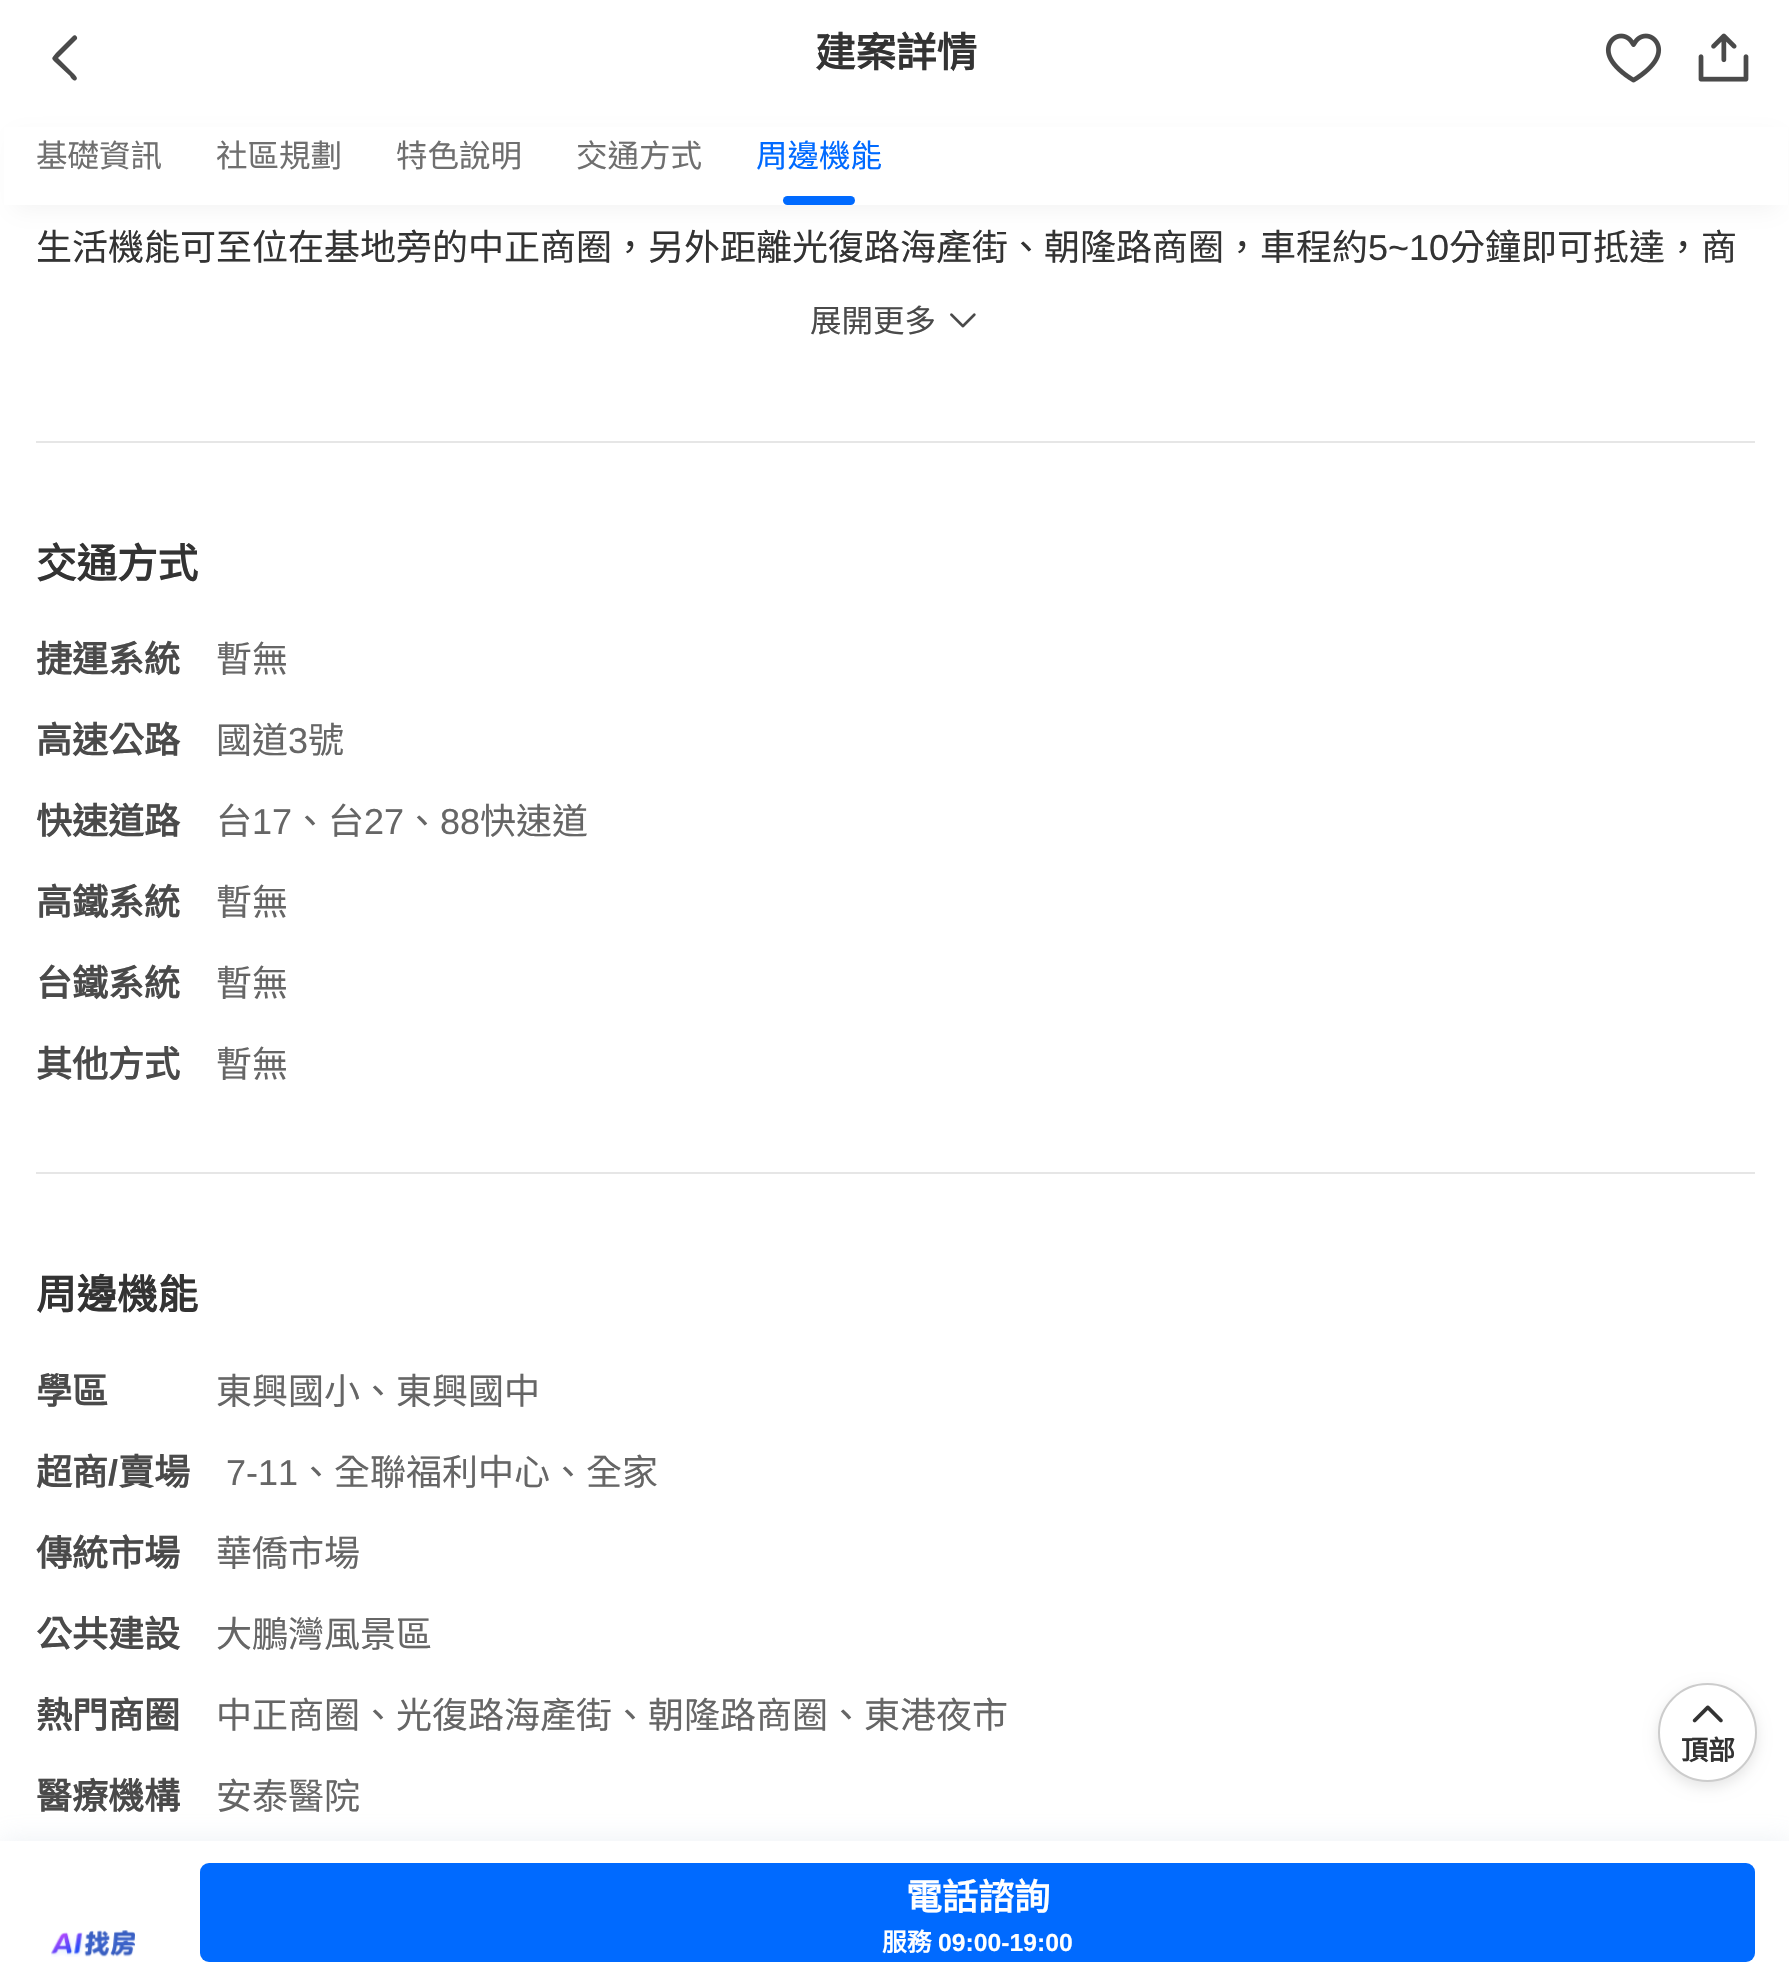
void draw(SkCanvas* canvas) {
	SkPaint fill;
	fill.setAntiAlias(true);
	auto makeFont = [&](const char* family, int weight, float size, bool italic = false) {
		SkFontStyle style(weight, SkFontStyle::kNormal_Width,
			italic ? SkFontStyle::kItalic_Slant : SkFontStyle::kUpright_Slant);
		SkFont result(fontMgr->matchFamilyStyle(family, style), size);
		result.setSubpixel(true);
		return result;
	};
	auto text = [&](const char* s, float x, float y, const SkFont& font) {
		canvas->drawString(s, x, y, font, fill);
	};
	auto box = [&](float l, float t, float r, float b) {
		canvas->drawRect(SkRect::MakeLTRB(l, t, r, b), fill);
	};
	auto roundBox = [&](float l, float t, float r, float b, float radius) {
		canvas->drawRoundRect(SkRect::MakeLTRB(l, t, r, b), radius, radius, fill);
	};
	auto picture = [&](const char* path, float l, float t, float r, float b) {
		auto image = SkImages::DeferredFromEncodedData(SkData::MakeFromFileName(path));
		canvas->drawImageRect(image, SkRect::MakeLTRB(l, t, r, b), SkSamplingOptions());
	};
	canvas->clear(0xFFFFFFFF);
	fill.setColor(0xFF4A4A4A);
	canvas->drawPath(SkPathBuilder().moveTo(73, 36).cubicTo(75, 34, 78, 37, 77, 39).lineTo(58, 58).lineTo(73, 73).cubicTo(74, 74, 79, 78, 76, 80).cubicTo(74, 82, 71, 78, 70, 76).lineTo(56, 63).cubicTo(51, 58, 51, 59, 56, 53).close().detach(), fill);
	picture("image0.png", 1605, 33, 1662, 83);
	picture("image1.png", 1698, 33, 1749, 82);
	fill.setColor(0x1A828282);
	fill.setMaskFilter(SkMaskFilter::MakeBlur(kNormal_SkBlurStyle, 12.5f));
	canvas->drawRect(SkRect::MakeLTRB(14, 137, 1778, 209), fill);
	fill.setMaskFilter(nullptr);
	fill.setColor(0xFFFFFFFF);
	box(4, 127, 1788, 205);
	fill.setColor(0xFF006AFF);
	roundBox(783, 196, 855, 205, 4.5f);
	fill.setColor(0xFFE6E6E6);
	box(36, 441, 1755, 443);
	picture("image2.png", 950, 313, 976, 328);
	box(36, 1172, 1755, 1174);
	fill.setColor(0x339FB4C8);
	fill.setMaskFilter(SkMaskFilter::MakeBlur(kNormal_SkBlurStyle, 13.5f));
	canvas->drawRect(SkRect::MakeLTRB(0, 1841, 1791, 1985), fill);
	fill.setMaskFilter(nullptr);
	fill.setColor(0xFFFFFFFF);
	box(0, 1841, 1789, 1984);
	picture("image3.png", 51, 1930, 135, 1957);
	fill.setColor(0xFF006AFF);
	roundBox(200, 1863, 1755, 1962, 9);
	fill.setColor(0x1A000000);
	fill.setMaskFilter(SkMaskFilter::MakeBlur(kNormal_SkBlurStyle, 7));
	canvas->drawRoundRect(SkRect::MakeLTRB(1658, 1688, 1757, 1787), 49.5f, 49.5f, fill);
	fill.setMaskFilter(nullptr);
	fill.setColor(0xFFFFFFFF);
	canvas->drawCircle(1707.5f, 1732.5f, 48.5f, fill);
	fill.setStyle(SkPaint::kStroke_Style);
	fill.setStrokeWidth(2);
	fill.setColor(0xFFCCCCCC);
	canvas->drawCircle(1707.5f, 1732.5f, 48.5f, fill);
	picture("image4.png", 1692, 1705, 1723, 1723);
	auto font1 = makeFont("Noto Sans CJK TC", 700, 40.5f);
	fill.setStyle(SkPaint::kFill_Style);
	fill.setColor(0xFF333333);
	text("建案詳情", 815, 67, font1);
	auto font2 = makeFont("Noto Sans CJK TC", 400, 31.5f);
	fill.setColor(0xFF6F6F6F);
	text("基礎資訊", 36, 167, font2);
	text("社區規劃", 216, 167, font2);
	text("特色說明", 396, 167, font2);
	text("交通方式", 576, 167, font2);
	fill.setColor(0xFF006AFF);
	text("周邊機能", 756, 167, font2);
	auto font3 = makeFont("Noto Sans CJK TC", 400, 36);
	fill.setColor(0xFF333333);
	text("生活機能可至位在基地旁的中正商圈，另外距離光復路海產街、朝隆路商圈，車程約", 36, 260, font3);
	auto font4 = makeFont("Liberation Sans", 400, 36);
	text("5~10", 1368, 260, font4);
	text("分鐘即可抵達，商", 1449, 260, font3);
	fill.setColor(0xFF4A4A4A);
	text("展開更多", 810, 332, font2);
	fill.setColor(0xFF333333);
	text("交通方式", 36, 578, font1);
	auto font5 = makeFont("Noto Sans CJK TC", 700, 36);
	fill.setColor(0xFF4A4A4A);
	text("捷運系統", 36, 672, font5);
	fill.setColor(0xFF666666);
	text("暫無", 216, 672, font3);
	fill.setColor(0xFF4A4A4A);
	text("高速公路", 36, 753, font5);
	fill.setColor(0xFF666666);
	text("國道", 216, 753, font3);
	text("3", 288, 753, font4);
	text("號", 308, 753, font3);
	fill.setColor(0xFF4A4A4A);
	text("快速道路", 36, 834, font5);
	fill.setColor(0xFF666666);
	text("台", 216, 834, font3);
	text("17", 252, 834, font4);
	text("、台", 292, 834, font3);
	text("27", 364, 834, font4);
	text("、", 404, 834, font3);
	text("88", 440, 834, font4);
	text("快速道", 480, 834, font3);
	fill.setColor(0xFF4A4A4A);
	text("高鐵系統", 36, 915, font5);
	fill.setColor(0xFF666666);
	text("暫無", 216, 915, font3);
	fill.setColor(0xFF4A4A4A);
	text("台鐵系統", 36, 996, font5);
	fill.setColor(0xFF666666);
	text("暫無", 216, 996, font3);
	fill.setColor(0xFF4A4A4A);
	text("其他方式", 36, 1077, font5);
	fill.setColor(0xFF666666);
	text("暫無", 216, 1077, font3);
	fill.setColor(0xFF333333);
	text("周邊機能", 36, 1309, font1);
	fill.setColor(0xFF4A4A4A);
	text("學區", 36, 1404, font5);
	fill.setColor(0xFF666666);
	text("東興國小、東興國中", 216, 1404, font3);
	fill.setColor(0xFF4A4A4A);
	text("超商", 36, 1485, font5);
	auto font6 = makeFont("Liberation Sans", 700, 36);
	text("/", 108, 1485, font6);
	text("賣場", 118, 1485, font5);
	fill.setColor(0xFF666666);
	text("7-11", 226, 1485, font4);
	text("、全聯福利中心、全家", 298, 1485, font3);
	fill.setColor(0xFF4A4A4A);
	text("傳統市場", 36, 1566, font5);
	fill.setColor(0xFF666666);
	text("華僑市場", 216, 1566, font3);
	fill.setColor(0xFF4A4A4A);
	text("公共建設", 36, 1647, font5);
	fill.setColor(0xFF666666);
	text("大鵬灣風景區", 216, 1647, font3);
	fill.setColor(0xFF4A4A4A);
	text("熱門商圈", 36, 1728, font5);
	fill.setColor(0xFF666666);
	text("中正商圈、光復路海產街、朝隆路商圈、東港夜市", 216, 1728, font3);
	fill.setColor(0xFF4A4A4A);
	text("醫療機構", 36, 1809, font5);
	fill.setColor(0xFF666666);
	text("安泰醫院", 216, 1809, font3);
	fill.setColor(0xFFFFFFFF);
	text("電話諮詢", 906, 1910, font5);
	auto font7 = makeFont("Noto Sans CJK TC", 700, 24.75f);
	text("服務", 882, 1951, font7);
	auto font8 = makeFont("Liberation Sans", 700, 24.75f);
	text("09:00-19:00", 938, 1951, font8);
	auto font9 = makeFont("Noto Sans CJK TC", 700, 27);
	fill.setColor(0xFF333333);
	text("頂部", 1681, 1760, font9);
}
